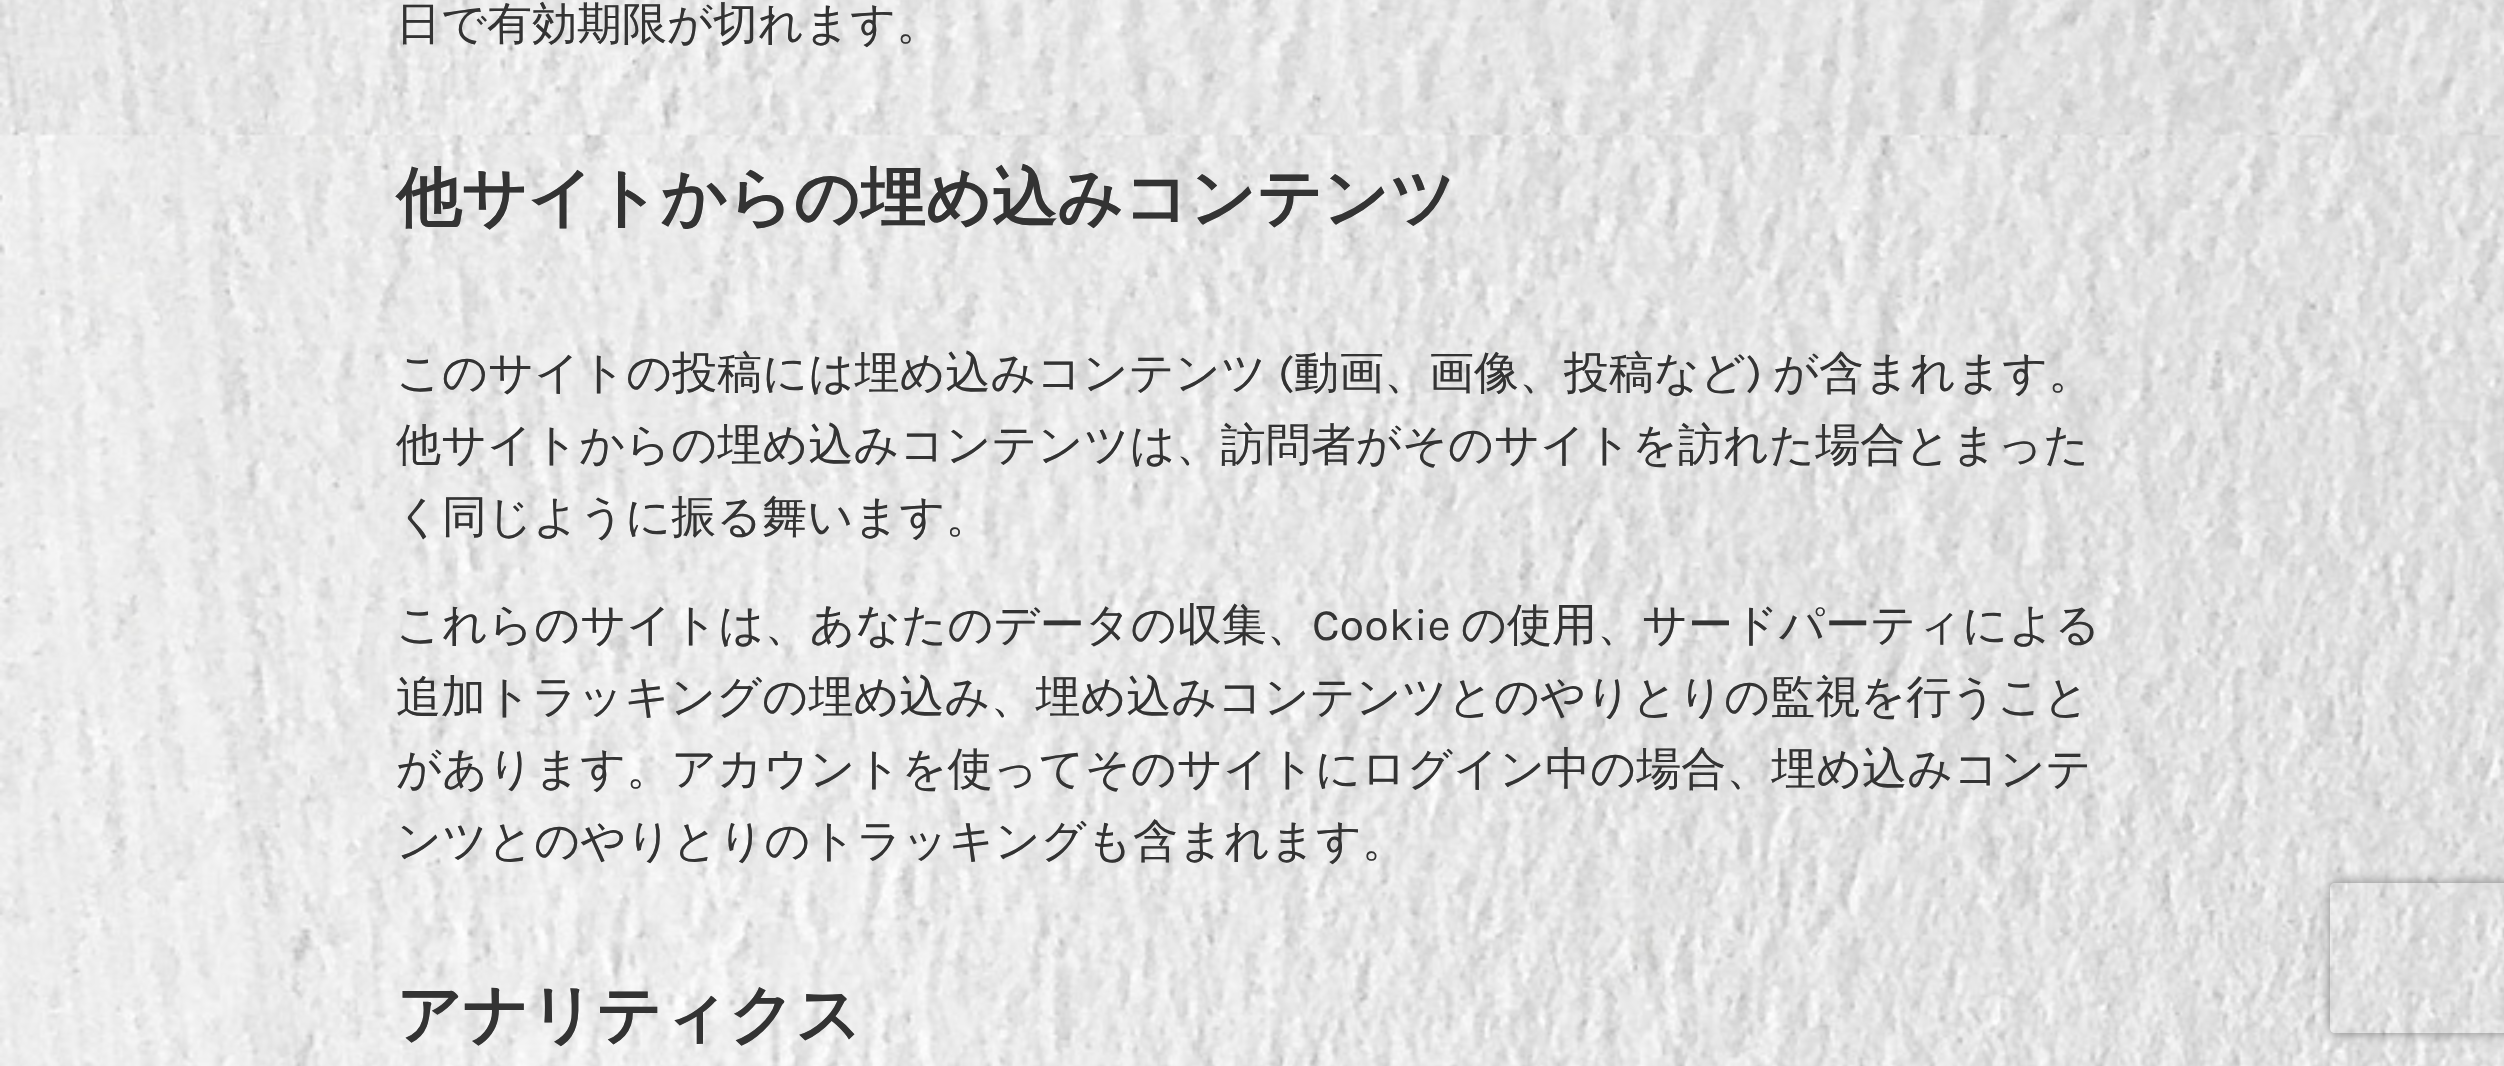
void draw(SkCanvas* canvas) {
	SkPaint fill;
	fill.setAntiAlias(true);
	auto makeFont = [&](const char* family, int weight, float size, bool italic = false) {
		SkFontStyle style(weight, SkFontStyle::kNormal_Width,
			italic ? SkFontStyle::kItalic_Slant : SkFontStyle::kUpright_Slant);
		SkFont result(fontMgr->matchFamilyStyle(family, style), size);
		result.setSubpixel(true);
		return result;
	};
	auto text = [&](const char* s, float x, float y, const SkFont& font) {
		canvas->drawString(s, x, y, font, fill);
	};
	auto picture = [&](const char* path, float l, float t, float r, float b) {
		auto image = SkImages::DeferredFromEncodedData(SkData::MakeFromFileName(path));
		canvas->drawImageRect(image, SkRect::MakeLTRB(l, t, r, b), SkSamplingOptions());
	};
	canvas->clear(0xFFFFFFFF);
	picture("image0.png", 0, 0, 2504, 1066);
	canvas->save();
	canvas->clipPath(SkPathBuilder(SkPathFillType::kEvenOdd).moveTo(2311, 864).lineTo(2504, 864).lineTo(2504, 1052).lineTo(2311, 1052).close().moveTo(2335, 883).lineTo(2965, 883).cubicTo(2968, 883, 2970, 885, 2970, 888).lineTo(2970, 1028).cubicTo(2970, 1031, 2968, 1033, 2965, 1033).lineTo(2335, 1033).cubicTo(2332, 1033, 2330, 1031, 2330, 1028).lineTo(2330, 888).cubicTo(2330, 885, 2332, 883, 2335, 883).close().detach(), true);
	fill.setColor(0xFF808080);
	fill.setMaskFilter(SkMaskFilter::MakeBlur(kNormal_SkBlurStyle, 6));
	canvas->drawRoundRect(SkRect::MakeLTRB(2330, 883, 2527, 1033), 5, 5, fill);
	fill.setMaskFilter(nullptr);
	canvas->restore();
	auto font1 = makeFont("WenQuanYi Zen Hei", 500, 45);
	fill.setColor(0xFF333333);
	text("日で有効期限が切れます。", 396, 39, font1);
	auto font2 = makeFont("WenQuanYi Zen Hei", 700, 65);
	text("他サイトからの埋め込みコンテンツ", 396, 220, font2);
	text("このサイトの投稿には埋め込みコンテンツ", 396, 388, font1);
	auto font3 = makeFont("Karla", 400, 45);
	text("(", 1278, 388, font3);
	text("動画、画像、投稿など", 1294, 388, font1);
	text(")", 1746, 388, font3);
	text("が含まれます。", 1773, 388, font1);
	text("他サイトからの埋め込みコンテンツは、訪問者がそのサイトを訪れた場合とまった", 396, 460, font1);
	text("く同じように振る舞います。", 396, 532, font1);
	text("これらのサイトは、あなたのデータの収集、", 396, 640, font1);
	text("Cookie", 1312, 640, font3);
	text("の使用、サードパーティによる", 1461, 640, font1);
	text("追加トラッキングの埋め込み、埋め込みコンテンツとのやりとりの監視を行うこと", 396, 712, font1);
	text("があります。アカウントを使ってそのサイトにログイン中の場合、埋め込みコンテ", 396, 784, font1);
	text("ンツとのやりとりのトラッキングも含まれます。", 396, 856, font1);
	text("アナリティクス", 396, 1037, font2);
}
